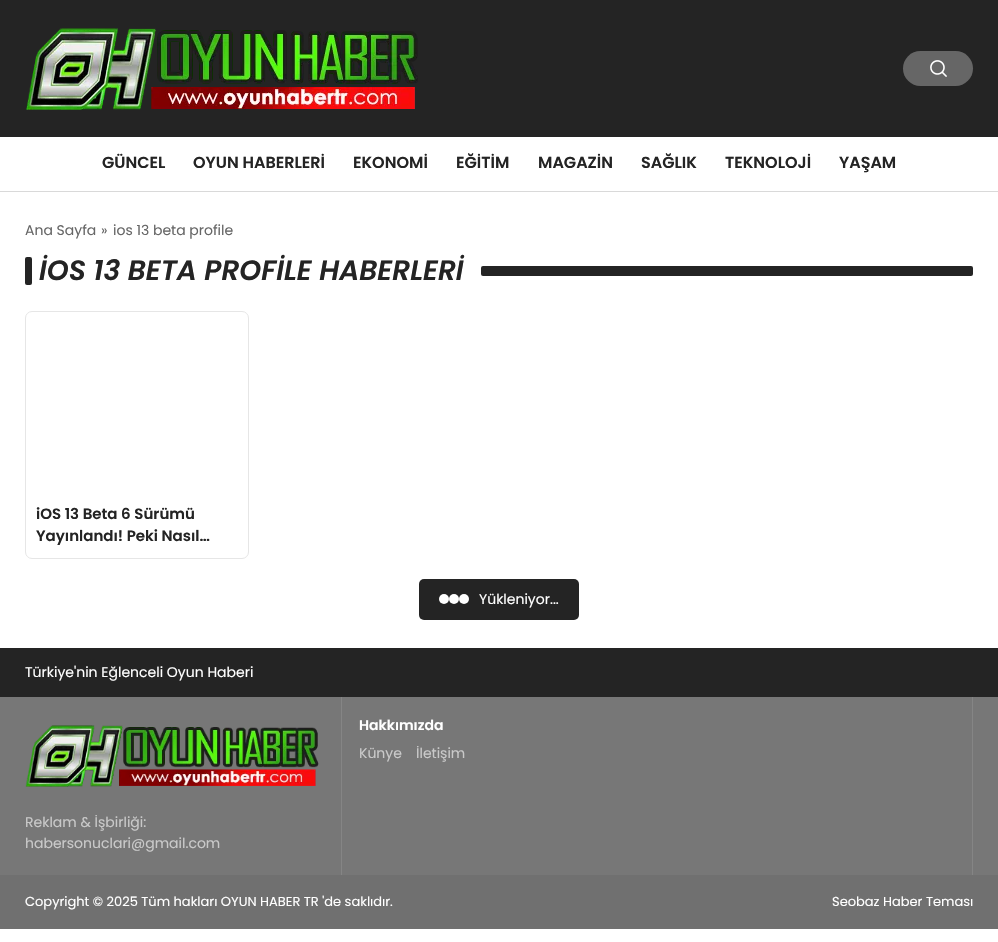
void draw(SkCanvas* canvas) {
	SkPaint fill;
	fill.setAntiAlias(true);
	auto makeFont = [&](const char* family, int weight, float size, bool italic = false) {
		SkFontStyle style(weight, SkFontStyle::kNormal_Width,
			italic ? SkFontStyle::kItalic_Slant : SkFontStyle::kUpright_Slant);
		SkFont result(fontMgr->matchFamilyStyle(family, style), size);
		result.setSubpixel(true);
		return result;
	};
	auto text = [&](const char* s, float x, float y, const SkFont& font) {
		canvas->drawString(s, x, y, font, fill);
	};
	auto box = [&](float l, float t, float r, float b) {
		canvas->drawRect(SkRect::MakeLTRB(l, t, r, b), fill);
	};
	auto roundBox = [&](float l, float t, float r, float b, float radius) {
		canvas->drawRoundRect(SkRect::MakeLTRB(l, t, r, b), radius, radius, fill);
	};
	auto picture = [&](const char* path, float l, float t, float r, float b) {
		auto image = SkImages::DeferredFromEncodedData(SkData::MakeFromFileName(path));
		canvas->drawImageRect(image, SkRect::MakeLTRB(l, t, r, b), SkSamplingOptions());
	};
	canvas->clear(0xFFFFFFFF);
	fill.setColor(0xFF242424);
	box(0, 0, 998, 137);
	picture("image0.png", 26, 28, 418, 110);
	fill.setColor(0xFF666666);
	roundBox(903, 51, 973, 86, 17.5f);
	picture("image1.png", 930, 60, 947, 77);
	fill.setColor(0xFFD9D9D9);
	box(0, 191, 998, 192);
	fill.setColor(0xFF242424);
	roundBox(25, 257, 32, 285, 2);
	roundBox(481, 266, 973, 276, 2);
	fill.setStyle(SkPaint::kStroke_Style);
	fill.setStrokeWidth(1);
	fill.setColor(0xFFE6E6E6);
	canvas->drawRoundRect(SkRect::MakeLTRB(25.5f, 311.5f, 248.5f, 558.5f), 6.5f, 6.5f, fill);
	fill.setStyle(SkPaint::kFill_Style);
	fill.setColor(0xFF242424);
	roundBox(419, 579, 579, 620, 5);
	fill.setColor(0xFFFFFFFF);
	canvas->drawCircle(444, 599, 5, fill);
	canvas->drawCircle(454, 599, 5, fill);
	canvas->drawCircle(464, 599, 5, fill);
	fill.setColor(0xFF242424);
	box(0, 648, 998, 697);
	fill.setColor(0xFF777777);
	box(0, 697, 998, 875);
	fill.setColor(0xFF858585);
	box(972, 697, 973, 875);
	box(341, 697, 342, 875);
	picture("image2.png", 25, 725, 319, 787);
	fill.setColor(0xFF707070);
	box(0, 875, 998, 929);
	auto font1 = makeFont("Poppins", 600, 16);
	fill.setColor(0xFF242424);
	text("GÜNCEL", 102, 168, font1);
	text("OYUN HABERLERİ", 193, 168, font1);
	text("EKONOMİ", 353, 168, font1);
	text("EĞİTİM", 456, 168, font1);
	text("MAGAZİN", 538, 168, font1);
	text("SAĞLIK", 641, 168, font1);
	text("TEKNOLOJİ", 725, 168, font1);
	text("YAŞAM", 839, 168, font1);
	auto font2 = makeFont("Poppins", 400, 14);
	fill.setColor(0xFF676767);
	text("Ana Sayfa", 25, 235, font2);
	text("»", 101, 235, font2);
	text("ios 13 beta profile", 113, 235, font2);
	auto font3 = makeFont("Poppins", 600, 28, true);
	fill.setColor(0xFF242424);
	text("İOS 13 BETA PROFİLE HABERLERİ", 39, 280, font3);
	auto font4 = makeFont("Poppins", 600, 15);
	text("iOS 13 Beta 6 Sürümü", 36, 519, font4);
	text("Yayınlandı! Peki Nasıl…", 36, 541, font4);
	fill.setColor(0xFFFFFFFF);
	text("Yükleniyor...", 479, 604, font2);
	text("Türkiye'nin Eğlenceli Oyun Haberi", 25, 677, font2);
	auto font5 = makeFont("Poppins", 600, 14);
	text("Hakkımızda", 359, 730, font5);
	fill.setColor(0xFFC9C9C9);
	text("Künye", 359, 758, font2);
	text("İletişim", 416, 758, font2);
	text("Reklam & İşbirliği:", 25, 827, font2);
	text("habersonuclari@gmail.com", 25, 848, font2);
	auto font6 = makeFont("Poppins", 400, 13);
	fill.setColor(0xFFFFFFFF);
	text("Copyright © 2025 Tüm hakları OYUN HABER TR 'de saklıdır.", 25, 906, font6);
	text("Seobaz Haber Teması", 832, 906, font6);
}
